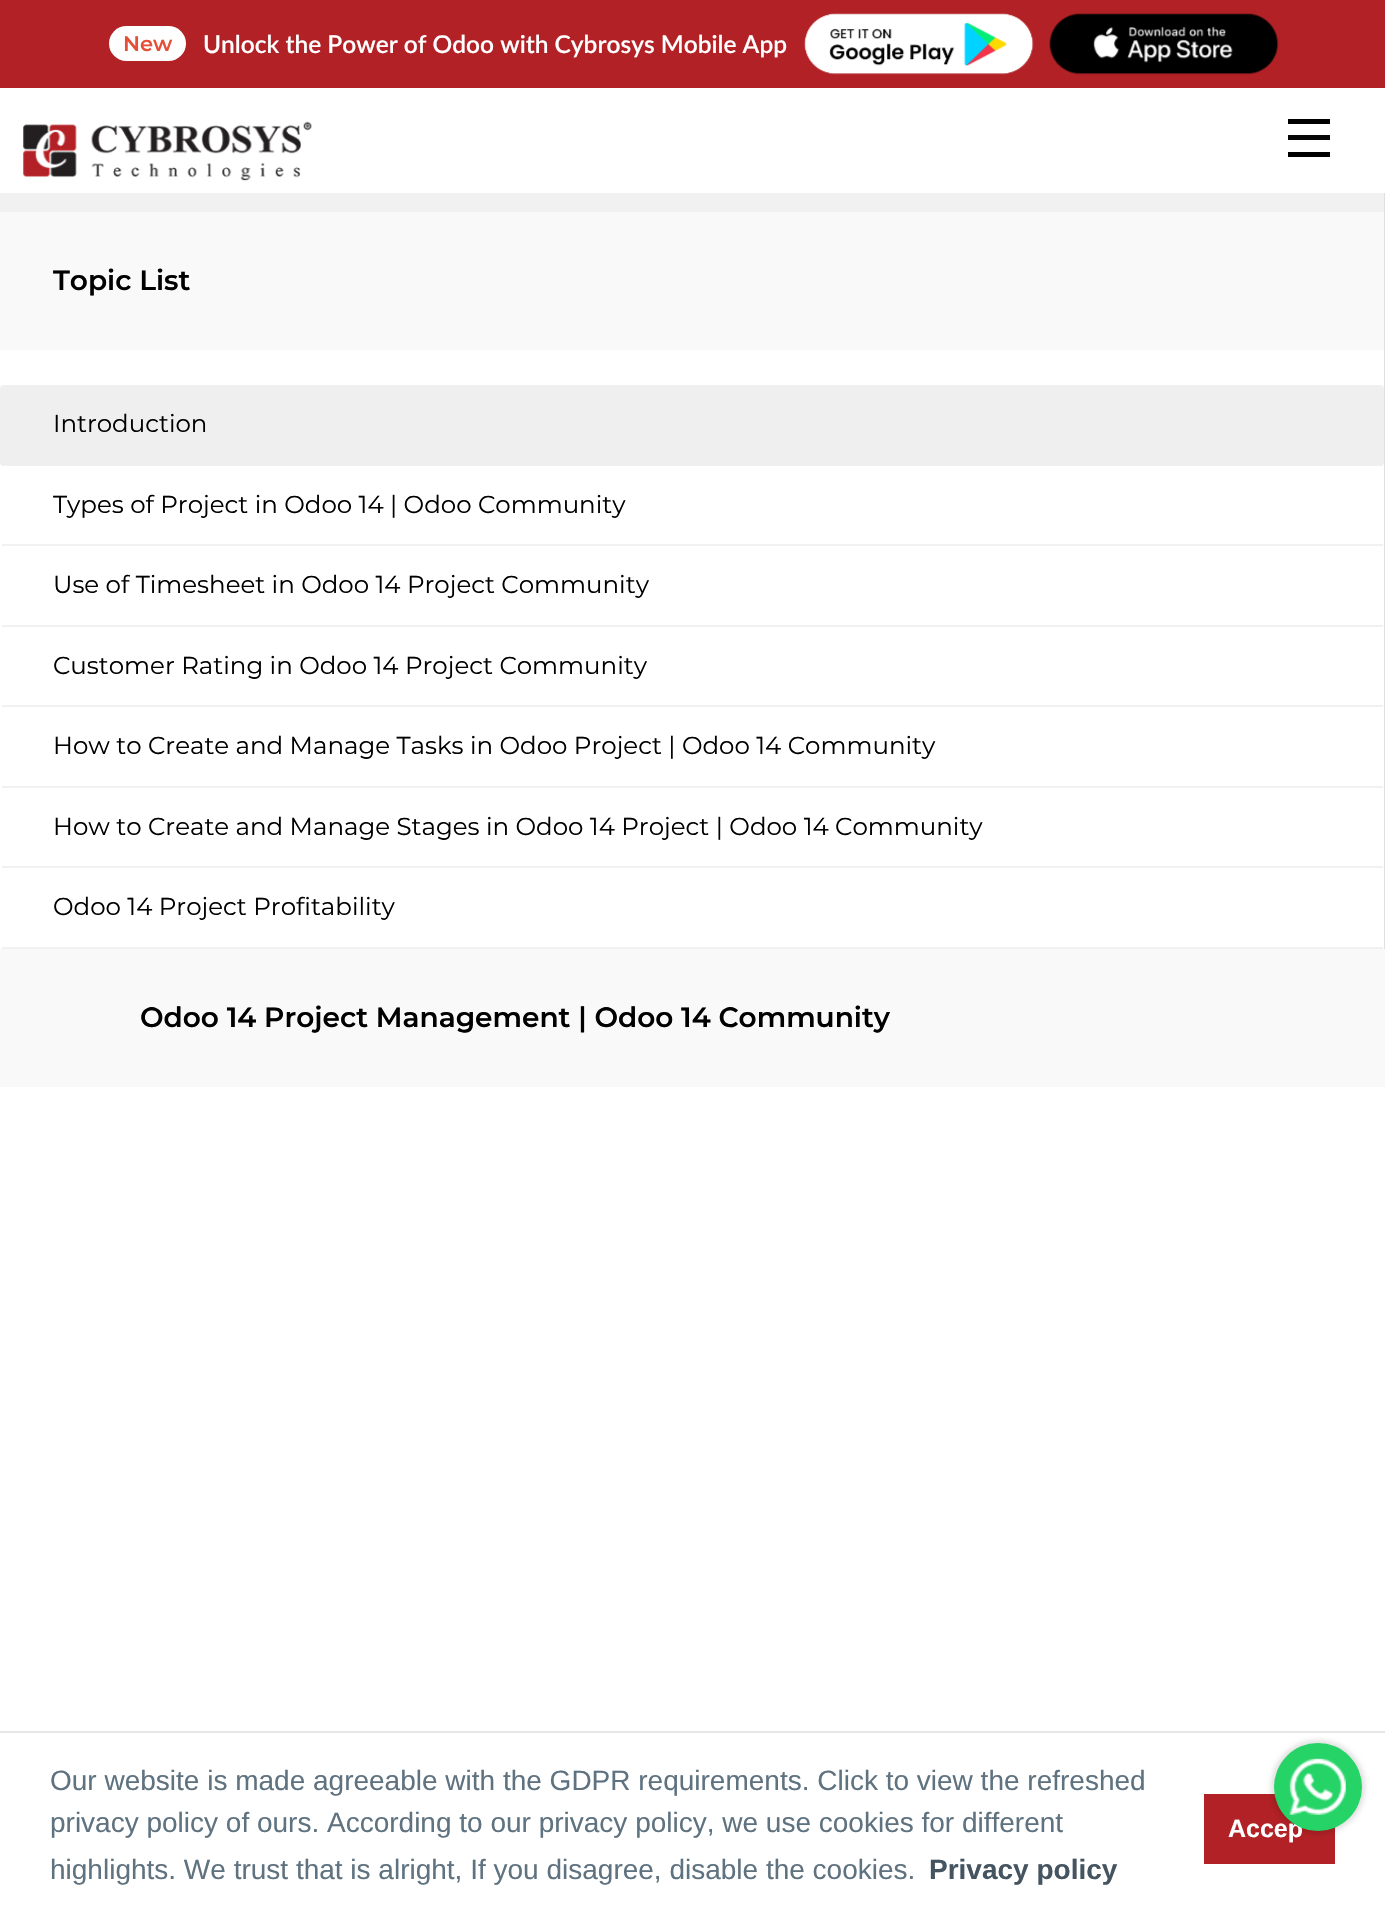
void draw(SkCanvas* canvas) {
	SkPaint fill;
	fill.setAntiAlias(true);
	auto makeFont = [&](const char* family, int weight, float size, bool italic = false) {
		SkFontStyle style(weight, SkFontStyle::kNormal_Width,
			italic ? SkFontStyle::kItalic_Slant : SkFontStyle::kUpright_Slant);
		SkFont result(fontMgr->matchFamilyStyle(family, style), size);
		result.setSubpixel(true);
		return result;
	};
	auto text = [&](const char* s, float x, float y, const SkFont& font) {
		canvas->drawString(s, x, y, font, fill);
	};
	auto box = [&](float l, float t, float r, float b) {
		canvas->drawRect(SkRect::MakeLTRB(l, t, r, b), fill);
	};
	auto roundBox = [&](float l, float t, float r, float b, float radius) {
		canvas->drawRoundRect(SkRect::MakeLTRB(l, t, r, b), radius, radius, fill);
	};
	auto picture = [&](const char* path, float l, float t, float r, float b) {
		auto image = SkImages::DeferredFromEncodedData(SkData::MakeFromFileName(path));
		canvas->drawImageRect(image, SkRect::MakeLTRB(l, t, r, b), SkSamplingOptions());
	};
	canvas->clear(0xFFFFFFFF);
	fill.setColor(0xFFB22126);
	box(0, 0, 1385, 88);
	fill.setColor(0xFFFFFFFF);
	roundBox(109, 26, 186, 61, 17.5f);
	picture("image0.png", 804, 13, 1034, 75);
	picture("image1.png", 1049, 13, 1279, 75);
	picture("image2.png", 23, 121, 312, 181);
	fill.setColor(0xFF000000);
	box(1288, 119, 1330, 124);
	box(1288, 152, 1330, 157);
	fill.setColor(0xFF070707);
	box(1288, 135, 1330, 140);
	fill.setColor(0xFFDFDFDF);
	box(1384, 193, 1385, 949);
	fill.setColor(0xFFF1F1F1);
	box(0, 193, 1384, 212);
	fill.setColor(0xFFF9F9F9);
	box(0, 212, 1384, 350);
	fill.setColor(0xFFEFEFEF);
	roundBox(0, 385, 1384, 466, 4);
	fill.setColor(0xFFF1F1F1);
	box(2, 465, 1383, 466);
	box(2, 544, 1383, 546);
	box(2, 625, 1383, 627);
	box(2, 705, 1383, 707);
	box(2, 786, 1383, 788);
	box(2, 866, 1383, 868);
	box(2, 947, 1383, 949);
	fill.setColor(0xFFF9F9F9);
	box(0, 949, 1385, 1087);
	fill.setColor(0xFFE6E6E6);
	box(0, 1731, 1385, 1733);
	fill.setColor(0xFFB22126);
	box(1204, 1794, 1335, 1864);
	fill.setColor(0x1F000000);
	fill.setMaskFilter(SkMaskFilter::MakeBlur(kNormal_SkBlurStyle, 2.5f));
	canvas->drawRoundRect(SkRect::MakeLTRB(1271, 1740, 1365, 1834), 47, 47, fill);
	fill.setMaskFilter(nullptr);
	auto font1 = makeFont("Montserrat", 600, 21);
	fill.setColor(0xFFE54F38);
	text("New", 123, 51, font1);
	auto font2 = makeFont("Lato", 600, 24.5f);
	fill.setColor(0xFFFFFFFF);
	text("Unlock the Power of Odoo with Cybrosys Mobile App", 203, 53, font2);
	auto font3 = makeFont("Montserrat", 600, 28);
	fill.setColor(0xFF000000);
	text("Topic List", 53, 290, font3);
	auto font4 = makeFont("Montserrat", 400, 24.5f);
	text("Introduction", 53, 432, font4);
	text("Types of Project in Odoo 14 | Odoo Community", 53, 513, font4);
	text("Use of Timesheet in Odoo 14 Project Community", 53, 593, font4);
	text("Customer Rating in Odoo 14 Project Community", 53, 674, font4);
	text("How to Create and Manage Tasks in Odoo Project | Odoo 14 Community", 53, 754, font4);
	text("How to Create and Manage Stages in Odoo 14 Project | Odoo 14 Community", 53, 835, font4);
	text("Odoo 14 Project Profitability", 53, 915, font4);
	text("Odoo 14 Project Management | Odoo 14 Community", 140, 1027, font3);
	auto font5 = makeFont("Liberation Sans", 400, 28);
	fill.setColor(0xFF5F727F);
	text("Our website is made agreeable with the GDPR requirements. Click to view the refreshed", 50, 1790, font5);
	text("privacy policy of ours. According to our privacy policy, we use cookies for different", 50, 1832, font5);
	text("highlights. We trust that is alright, If you disagree, disable the cookies.", 50, 1879, font5);
	auto font6 = makeFont("Liberation Sans", 700, 28);
	fill.setColor(0xFF445460);
	text("Privacy policy", 929, 1879, font6);
	auto font7 = makeFont("Liberation Sans", 700, 25);
	fill.setColor(0xFFFFFFFF);
	text("Accep", 1228, 1837, font7);
	fill.setColor(0xFF25D366);
	canvas->drawCircle(1318, 1787, 44, fill);
	picture("image3.png", 1289, 1758, 1346, 1815);
}
